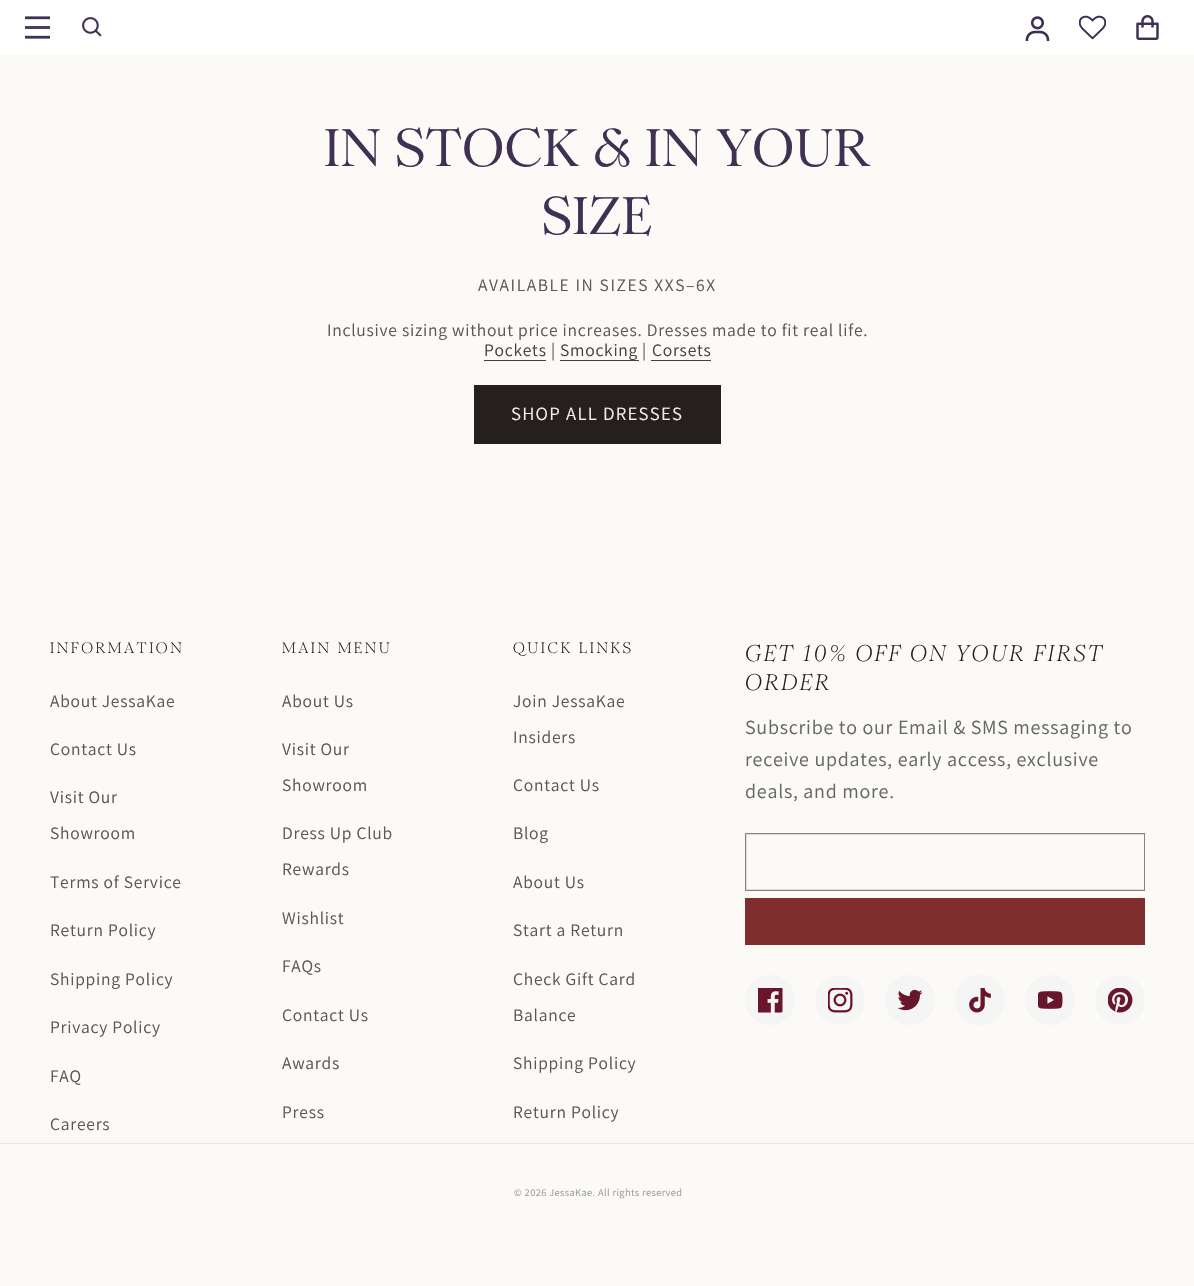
void draw(SkCanvas* canvas) {
	SkPaint fill;
	fill.setAntiAlias(true);
	auto makeFont = [&](const char* family, int weight, float size, bool italic = false) {
		SkFontStyle style(weight, SkFontStyle::kNormal_Width,
			italic ? SkFontStyle::kItalic_Slant : SkFontStyle::kUpright_Slant);
		SkFont result(fontMgr->matchFamilyStyle(family, style), size);
		result.setSubpixel(true);
		return result;
	};
	auto spacedText = [&](const char* s, float x, float y, const SkFont& font, const SkPaint& ink, float letter, float word) {
		std::vector<SkGlyphID> glyphs(font.countText(s, strlen(s), SkTextEncoding::kUTF8));
		std::vector<float> xs(glyphs.size());
		font.textToGlyphs(s, strlen(s), SkTextEncoding::kUTF8, glyphs);
		font.getXPos(glyphs, xs, x);
		float extra = 0;
		for (size_t i = 0; i < glyphs.size(); i++) {
			xs[i] += extra;
			extra += letter + word * (glyphs[i] == font.unicharToGlyph(' '));
		}
		canvas->drawTextBlob(SkTextBlob::MakeFromPosHGlyphs(glyphs, xs, y, font), 0, 0, ink);
	};
	auto box = [&](float l, float t, float r, float b) {
		canvas->drawRect(SkRect::MakeLTRB(l, t, r, b), fill);
	};
	auto picture = [&](const char* path, float l, float t, float r, float b) {
		auto image = SkImages::DeferredFromEncodedData(SkData::MakeFromFileName(path));
		canvas->drawImageRect(image, SkRect::MakeLTRB(l, t, r, b), SkSamplingOptions());
	};
	canvas->clear(0xFFFCFAF7);
	fill.setColor(0xFFFFFFFF);
	box(0, 0, 1194, 55);
	picture("image0.png", 25, 16, 50, 39);
	picture("image1.png", 82, 17, 102, 37);
	picture("image2.png", 1025, 16, 1050, 41);
	picture("image3.png", 1079, 15, 1106, 40);
	picture("image4.png", 1136, 15, 1159, 40);
	fill.setColor(0xFF45413F);
	box(484, 360, 546, 361);
	box(560, 360, 639, 361);
	box(651, 360, 711, 361);
	fill.setColor(0xFF25201E);
	box(474, 385, 721, 444);
	fill.setColor(0xFFDDDDDD);
	box(746, 834, 1144, 835);
	box(746, 889, 1144, 890);
	box(746, 834, 747, 890);
	fill.setStyle(SkPaint::kStroke_Style);
	fill.setStrokeWidth(1);
	fill.setColor(0xFF868280);
	canvas->drawRect(SkRect::MakeLTRB(745.5f, 833.5f, 1144.5f, 890.5f), fill);
	fill.setStyle(SkPaint::kFill_Style);
	fill.setColor(0xFF7E2C2C);
	box(745, 898, 1145, 945);
	fill.setColor(0xFFF5F5F5);
	canvas->drawCircle(770, 1000, 25, fill);
	picture("image5.png", 758, 988, 783, 1013);
	canvas->drawCircle(840, 1000, 25, fill);
	picture("image6.png", 828, 988, 853, 1013);
	canvas->drawCircle(910, 1000, 25, fill);
	picture("image7.png", 898, 989, 923, 1011);
	canvas->drawCircle(980, 1000, 25, fill);
	picture("image8.png", 969, 988, 991, 1013);
	canvas->drawCircle(1050, 1000, 25, fill);
	picture("image9.png", 1038, 991, 1063, 1009);
	canvas->drawCircle(1120, 1000, 25, fill);
	picture("image10.png", 1108, 988, 1133, 1013);
	fill.setColor(0xFFE5E5E5);
	box(0, 1143, 1194, 1144);
	auto font1 = makeFont("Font", 500, 52.5f);
	fill.setColor(0xFF3F3153);
	spacedText("IN STOCK & IN YOUR", 324, 166, font1, fill, 0.75f, 0);
	spacedText("SIZE", 542, 234, font1, fill, 0.75f, 0);
	auto font2 = makeFont("Assistant", 400, 17.5f);
	fill.setColor(0xFF5B5754);
	spacedText("AVAILABLE IN SIZES XXS–6X", 478, 291, font2, fill, 1.6f, 0);
	spacedText("Inclusive sizing without price increases. Dresses made to fit real life.", 327, 336, font2, fill, 0.75f, 0);
	fill.setColor(0xFF45413F);
	spacedText("Pockets", 484, 356, font2, fill, 0.75f, 0);
	fill.setColor(0xFF5B5754);
	spacedText("|", 551, 356, font2, fill, 0.75f, 0);
	fill.setColor(0xFF45413F);
	spacedText("Smocking", 560, 356, font2, fill, 0.75f, 0);
	fill.setColor(0xFF5B5754);
	spacedText("|", 642, 356, font2, fill, 0.75f, 0);
	fill.setColor(0xFF45413F);
	spacedText("Corsets", 652, 356, font2, fill, 0.75f, 0);
	auto font3 = makeFont("Assistant", 400, 18.75f);
	fill.setColor(0xFFF4EFE6);
	spacedText("SHOP ALL DRESSES", 511, 420, font3, fill, 1.25f, 0);
	auto font4 = makeFont("Font", 400, 15);
	fill.setColor(0xFF25201E);
	spacedText("INFORMATION", 50, 653, font4, fill, 2.5f, 0);
	fill.setColor(0xFF5B5754);
	spacedText("About JessaKae", 50, 707, font2, fill, 0.75f, 0);
	spacedText("Contact Us", 50, 755, font2, fill, 0.75f, 0);
	spacedText("Visit Our", 50, 803, font2, fill, 0.75f, 0);
	spacedText("Showroom", 50, 839, font2, fill, 0.75f, 0);
	spacedText("Terms of Service", 50, 888, font2, fill, 0.75f, 0);
	spacedText("Return Policy", 50, 936, font2, fill, 0.75f, 0);
	spacedText("Shipping Policy", 50, 985, font2, fill, 0.75f, 0);
	spacedText("Privacy Policy", 50, 1033, font2, fill, 0.75f, 0);
	spacedText("FAQ", 50, 1082, font2, fill, 0.75f, 0);
	spacedText("Careers", 50, 1130, font2, fill, 0.75f, 0);
	fill.setColor(0xFF25201E);
	spacedText("MAIN MENU", 282, 653, font4, fill, 2.5f, 0);
	fill.setColor(0xFF5B5754);
	spacedText("About Us", 282, 707, font2, fill, 0.75f, 0);
	spacedText("Visit Our", 282, 755, font2, fill, 0.75f, 0);
	spacedText("Showroom", 282, 791, font2, fill, 0.75f, 0);
	spacedText("Dress Up Club", 282, 839, font2, fill, 0.75f, 0);
	spacedText("Rewards", 282, 875, font2, fill, 0.75f, 0);
	spacedText("Wishlist", 282, 924, font2, fill, 0.75f, 0);
	spacedText("FAQs", 282, 972, font2, fill, 0.75f, 0);
	spacedText("Contact Us", 282, 1021, font2, fill, 0.75f, 0);
	spacedText("Awards", 282, 1069, font2, fill, 0.75f, 0);
	spacedText("Press", 282, 1118, font2, fill, 0.75f, 0);
	fill.setColor(0xFF25201E);
	spacedText("QUICK LINKS", 513, 653, font4, fill, 2.5f, 0);
	fill.setColor(0xFF5B5754);
	spacedText("Join JessaKae", 513, 707, font2, fill, 0.75f, 0);
	spacedText("Insiders", 513, 743, font2, fill, 0.75f, 0);
	spacedText("Contact Us", 513, 791, font2, fill, 0.75f, 0);
	spacedText("Blog", 513, 839, font2, fill, 0.75f, 0);
	spacedText("About Us", 513, 888, font2, fill, 0.75f, 0);
	spacedText("Start a Return", 513, 936, font2, fill, 0.75f, 0);
	spacedText("Check Gift Card", 513, 985, font2, fill, 0.75f, 0);
	spacedText("Balance", 513, 1021, font2, fill, 0.75f, 0);
	spacedText("Shipping Policy", 513, 1069, font2, fill, 0.75f, 0);
	spacedText("Return Policy", 513, 1118, font2, fill, 0.75f, 0);
	auto font5 = makeFont("Font", 400, 22.5f, true);
	fill.setColor(0xFF25201E);
	spacedText("GET 10% OFF ON YOUR FIRST", 745, 661, font5, fill, 2.5f, 0);
	spacedText("ORDER", 745, 690, font5, fill, 2.5f, 0);
	auto font6 = makeFont("Assistant", 400, 20);
	fill.setColor(0xFF666666);
	spacedText("Subscribe to our Email & SMS messaging to", 745, 734, font6, fill, 0.75f, 0);
	spacedText("receive updates, early access, exclusive", 745, 766, font6, fill, 0.75f, 0);
	spacedText("deals, and more.", 745, 798, font6, fill, 0.75f, 0);
	auto font7 = makeFont("Assistant", 400, 10.4f);
	fill.setColor(0xFF999999);
	spacedText("© 2026 JessaKae. All rights reserved", 514, 1196, font7, fill, 0.4f, 0);
}
